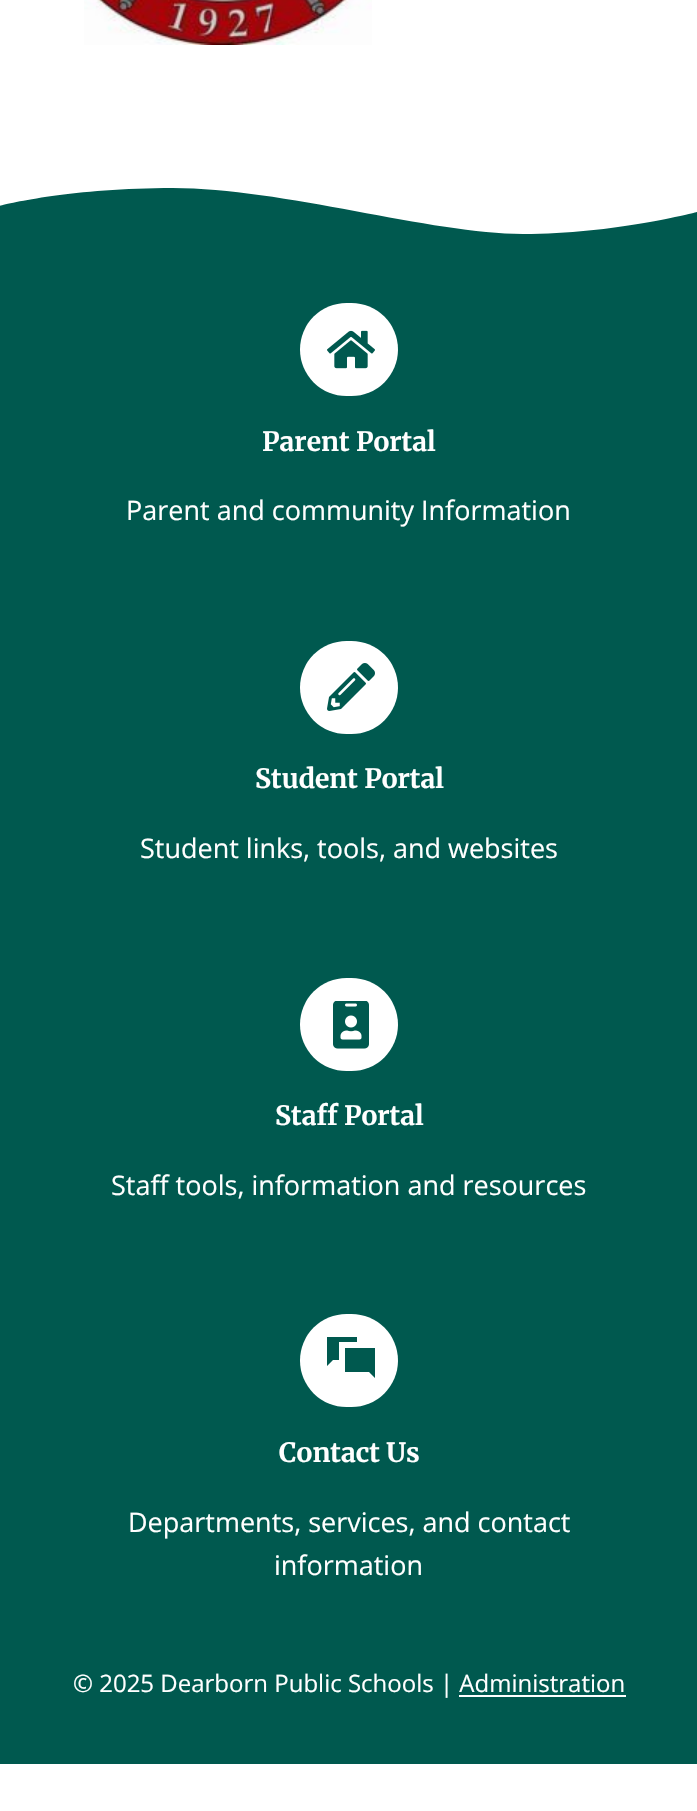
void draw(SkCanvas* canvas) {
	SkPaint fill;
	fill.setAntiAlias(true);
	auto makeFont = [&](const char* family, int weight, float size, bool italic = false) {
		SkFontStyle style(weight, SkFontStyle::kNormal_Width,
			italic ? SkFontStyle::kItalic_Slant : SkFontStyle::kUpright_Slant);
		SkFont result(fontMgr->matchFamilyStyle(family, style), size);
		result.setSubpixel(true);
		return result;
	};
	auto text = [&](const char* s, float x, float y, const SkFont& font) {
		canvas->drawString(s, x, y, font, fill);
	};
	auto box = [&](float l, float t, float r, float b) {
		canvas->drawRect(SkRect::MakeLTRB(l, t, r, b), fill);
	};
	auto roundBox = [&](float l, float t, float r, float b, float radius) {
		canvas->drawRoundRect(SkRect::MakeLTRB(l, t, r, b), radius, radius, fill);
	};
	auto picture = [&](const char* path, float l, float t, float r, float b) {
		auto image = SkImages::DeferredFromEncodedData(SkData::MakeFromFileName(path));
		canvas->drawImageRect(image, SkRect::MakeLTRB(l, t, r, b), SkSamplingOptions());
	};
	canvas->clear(0xFFFFFFFF);
	picture("image0.png", 84, 0, 372, 45);
	fill.setColor(0xFF00594F);
	box(0, 188, 697, 1764);
	fill.setColor(0xFFFFFFFF);
	canvas->drawPath(SkPathBuilder().moveTo(697, 212).cubicTo(697, 212, 614, 234, 523, 234).cubicTo(432, 234, 282, 188, 173, 188).cubicTo(65, 188, -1, 206, -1, 206).lineTo(-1, 176).lineTo(697, 176).close().detach(), fill);
	roundBox(300, 303, 398, 396, 46.5f);
	picture("image1.png", 327, 330, 375, 369);
	roundBox(300, 641, 398, 734, 46.5f);
	picture("image2.png", 327, 663, 375, 711);
	roundBox(300, 978, 398, 1071, 46.5f);
	picture("image3.png", 333, 1001, 369, 1049);
	roundBox(300, 1314, 398, 1407, 46.5f);
	canvas->save();
	canvas->clipRect(SkRect::MakeLTRB(327, 1337, 375, 1385));
	fill.setColor(0xFF00594F);
	canvas->drawPath(SkPathBuilder().moveTo(327, 1336).lineTo(327, 1366).lineTo(333, 1360).lineTo(339, 1360).lineTo(339, 1342).lineTo(357, 1342).lineTo(357, 1336).close().moveTo(345, 1348).lineTo(345, 1372).lineTo(369, 1372).lineTo(375, 1378).lineTo(375, 1348).close().detach(), fill);
	canvas->restore();
	fill.setColor(0xFFFFFFFF);
	box(459, 1695, 626, 1697);
	auto font1 = makeFont("Merriweather", 300, 26.5f);
	text("Parent Portal", 262, 451, font1);
	auto font2 = makeFont("Open Sans", 400, 27);
	text("Parent and community Information", 126, 520, font2);
	text("Student Portal", 255, 788, font1);
	text("Student links, tools, and websites", 140, 858, font2);
	text("Staff Portal", 275, 1125, font1);
	text("Staff tools, information and resources", 111, 1195, font2);
	text("Contact Us", 279, 1462, font1);
	text("Departments, services, and contact", 128, 1532, font2);
	text("information", 274, 1575, font2);
	auto font3 = makeFont("Open Sans", 400, 24);
	text("© 2025 Dearborn Public Schools | Administration", 73, 1692, font3);
}
